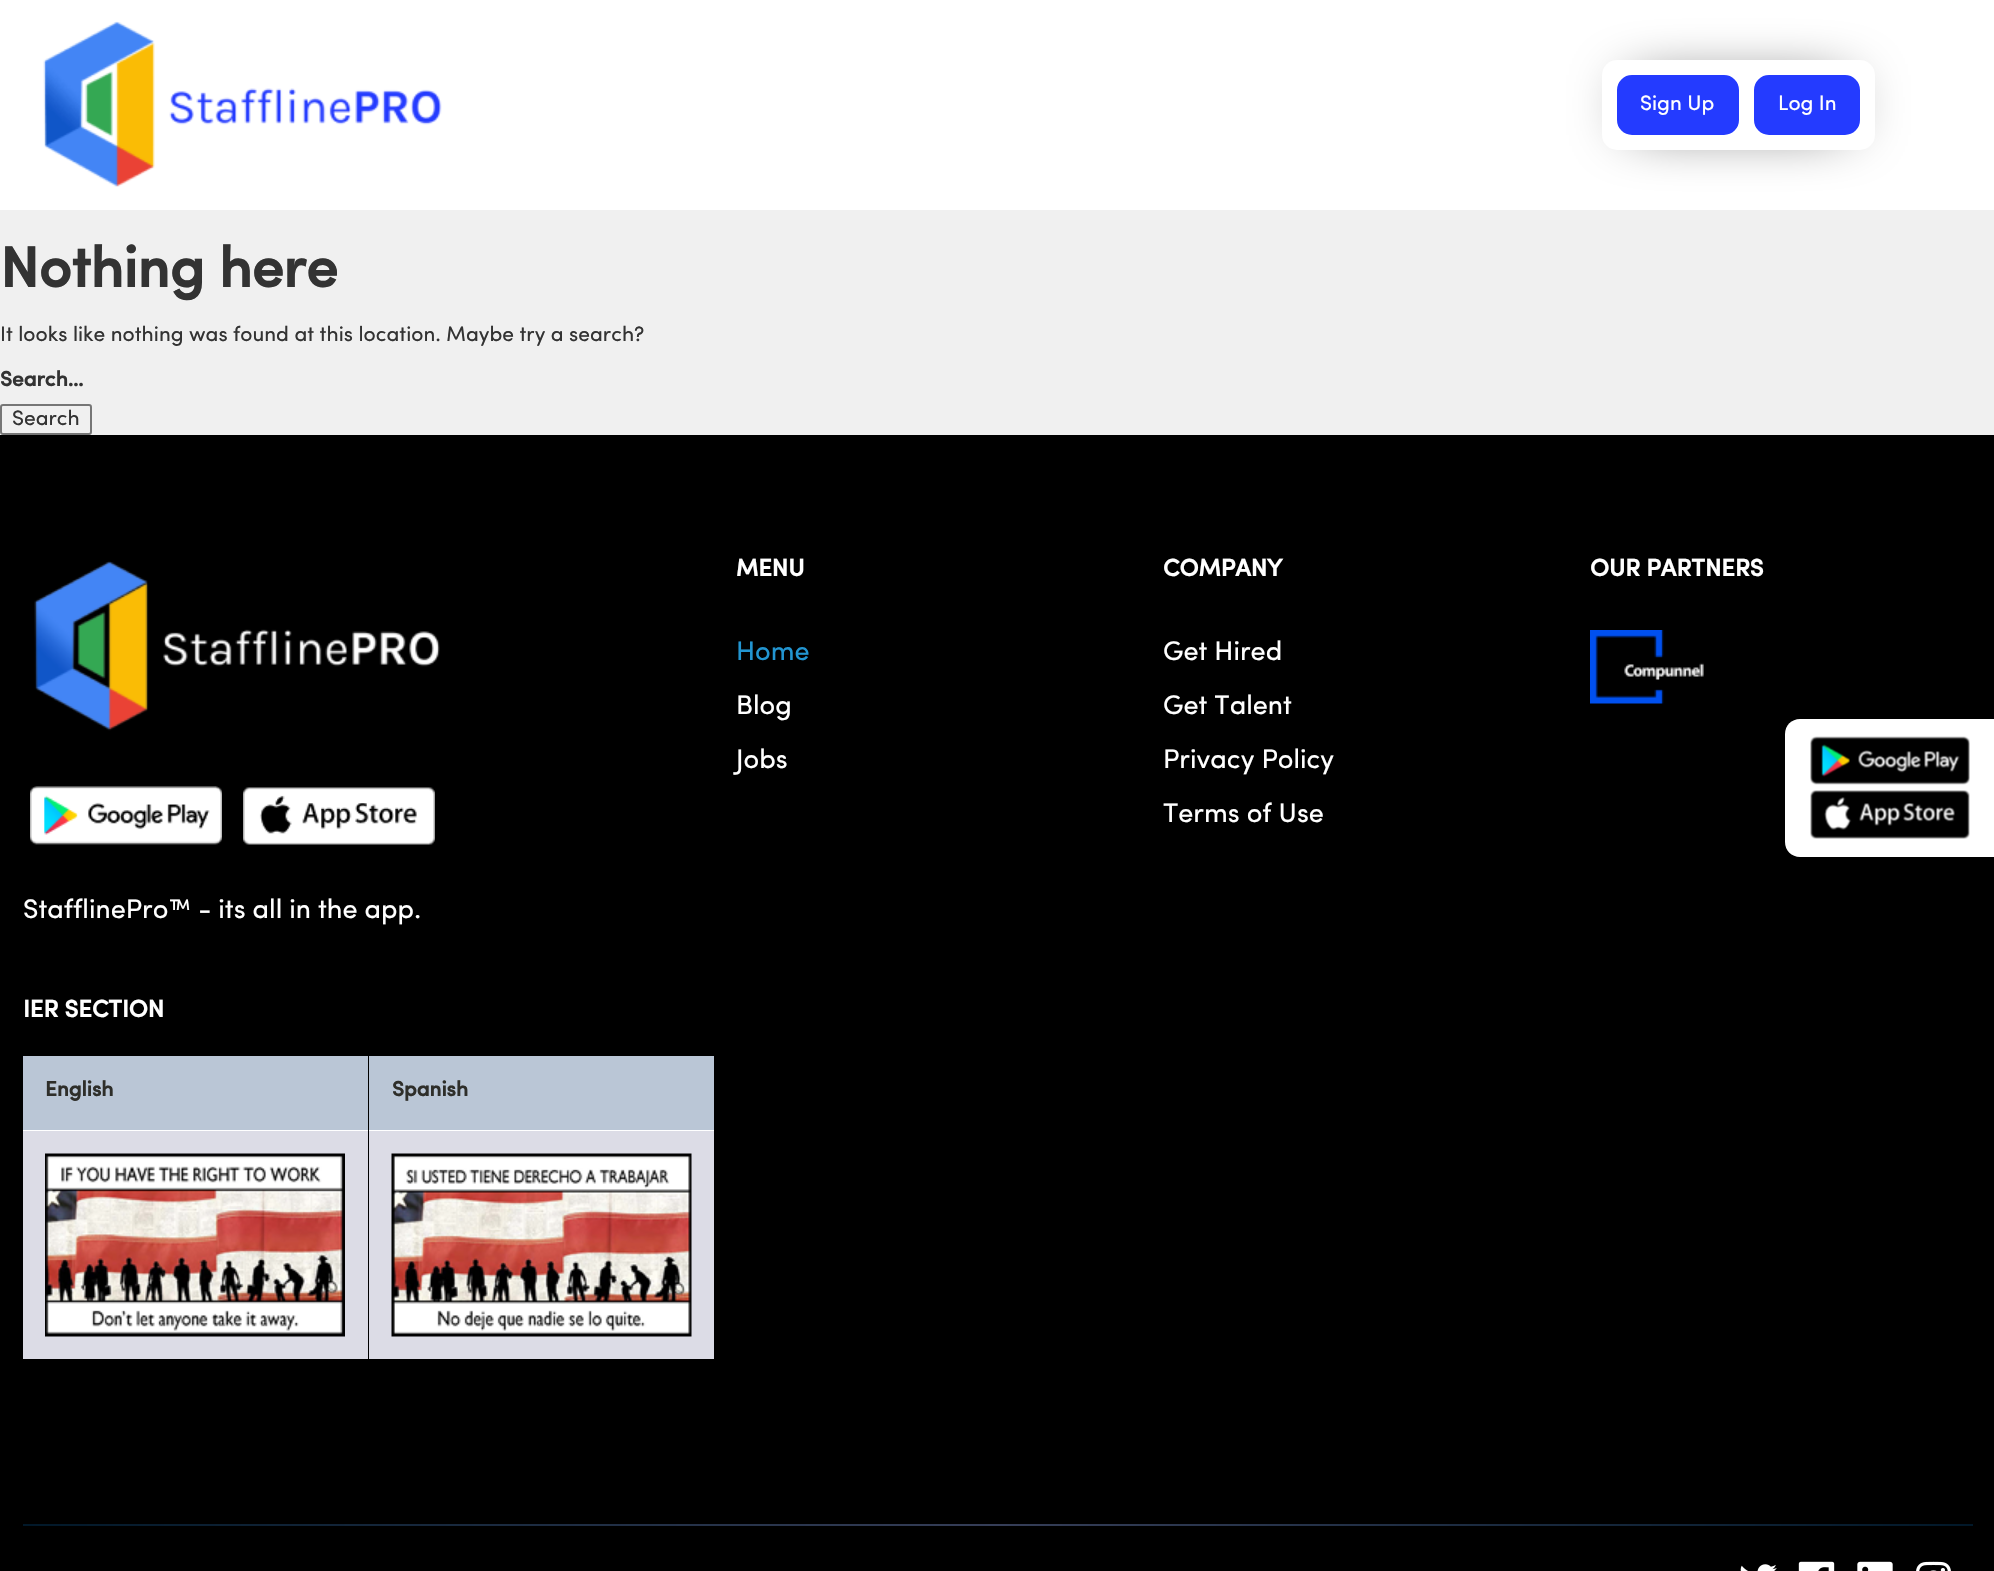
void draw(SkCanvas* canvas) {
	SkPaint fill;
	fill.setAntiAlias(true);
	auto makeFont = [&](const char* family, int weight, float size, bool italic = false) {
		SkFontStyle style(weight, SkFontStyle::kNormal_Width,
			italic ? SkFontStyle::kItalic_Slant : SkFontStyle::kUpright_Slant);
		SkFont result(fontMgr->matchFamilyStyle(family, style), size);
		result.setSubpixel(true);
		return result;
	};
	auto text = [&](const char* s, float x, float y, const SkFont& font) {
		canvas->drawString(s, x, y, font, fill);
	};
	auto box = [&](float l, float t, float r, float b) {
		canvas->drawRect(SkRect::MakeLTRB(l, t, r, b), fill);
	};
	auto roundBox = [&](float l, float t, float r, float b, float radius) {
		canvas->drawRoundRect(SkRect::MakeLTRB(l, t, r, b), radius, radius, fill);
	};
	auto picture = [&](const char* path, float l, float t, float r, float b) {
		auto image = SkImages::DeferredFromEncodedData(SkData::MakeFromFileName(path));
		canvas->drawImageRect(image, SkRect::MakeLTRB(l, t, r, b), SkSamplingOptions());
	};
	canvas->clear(0xFFF0F0F0);
	fill.setColor(0xFFFFFFFF);
	box(0, 0, 1994, 210);
	picture("image0.png", 43, 21, 442, 187);
	fill.setColor(0xFF000000);
	fill.setMaskFilter(SkMaskFilter::MakeBlur(kNormal_SkBlurStyle, 30));
	canvas->drawRect(SkRect::MakeLTRB(1632, 90, 1845, 120), fill);
	fill.setMaskFilter(nullptr);
	fill.setColor(0xFFFFFFFF);
	roundBox(1602, 60, 1875, 150, 15);
	fill.setColor(0xFF243BFF);
	canvas->drawRoundRect(SkRect::MakeLTRB(1618, 76, 1738, 134), 14, 14, fill);
	fill.setStyle(SkPaint::kStroke_Style);
	fill.setStrokeWidth(2);
	canvas->drawRoundRect(SkRect::MakeLTRB(1618, 76, 1738, 134), 14, 14, fill);
	fill.setStyle(SkPaint::kFill_Style);
	canvas->drawRoundRect(SkRect::MakeLTRB(1755, 76, 1859, 134), 14, 14, fill);
	fill.setStyle(SkPaint::kStroke_Style);
	canvas->drawRoundRect(SkRect::MakeLTRB(1755, 76, 1859, 134), 14, 14, fill);
	fill.setStyle(SkPaint::kFill_Style);
	fill.setColor(0xFF000000);
	box(0, 435, 1994, 1571);
	fill.setColor(0xFFFFFFFF);
	canvas->drawPath(SkPathBuilder().moveTo(1800, 719).lineTo(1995, 719).lineTo(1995, 857).lineTo(1800, 857).cubicTo(1791.5f, 857, 1785, 850.5f, 1785, 842).lineTo(1785, 734).cubicTo(1785, 725.5f, 1791.5f, 719, 1800, 719).close().detach(), fill);
	picture("image1.png", 1810, 736, 1970, 785);
	picture("image2.png", 1810, 790, 1970, 839);
	fill.setStyle(SkPaint::kStroke_Style);
	fill.setColor(0xFF767676);
	canvas->drawRoundRect(SkRect::MakeLTRB(1, 405, 91, 434), 2, 2, fill);
	picture("image3.png", 1590, 630, 1704, 704);
	picture("image4.png", 34, 561, 440, 731);
	picture("image5.png", 30, 786, 222, 845);
	picture("image6.png", 243, 787, 435, 845);
	fill.setStyle(SkPaint::kFill_Style);
	fill.setColor(0xFFBAC6D6);
	box(23, 1056, 368, 1130);
	fill.setColor(0xFFFFFFFF);
	box(23, 1130, 368, 1131);
	fill.setColor(0xFFDCDCE6);
	box(23, 1131, 368, 1359);
	picture("image7.png", 45, 1153, 345, 1337);
	fill.setColor(0xFFBAC6D6);
	box(369, 1056, 714, 1130);
	fill.setColor(0xFFFFFFFF);
	box(369, 1130, 714, 1131);
	fill.setColor(0xFFDCDCE6);
	box(369, 1131, 714, 1359);
	picture("image8.png", 391, 1153, 692, 1337);
	{
		const SkColor colors[] = {0xFF011829, 0xFF363E58, 0xFF011829};
		const float stops[] = {0, 0.5f, 1};
		const SkPoint ends[] = {{1973, 1525}, {23, 1525}};
		fill.setShader(SkGradientShader::MakeLinear(ends, colors, stops, 3, SkTileMode::kClamp));
		fill.setAlpha(255);
	}
	box(23, 1524, 1973, 1526);
	picture("image9.png", 1740, 1564, 1777, 1571);
	picture("image10.png", 1798, 1561, 1835, 1571);
	picture("image11.png", 1857, 1561, 1893, 1571);
	picture("image12.png", 1916, 1561, 1951, 1571);
	auto font1 = makeFont("Sofia", 400, 21);
	fill.setShader(nullptr);
	fill.setColor(0xFFFFFFFF);
	text("Sign Up", 1640, 110, font1);
	text("Log In", 1778, 110, font1);
	auto font2 = makeFont("Sofia", 700, 57);
	fill.setColor(0xFF333333);
	text("Nothing here", 0, 287, font2);
	text("It looks like nothing was found at this location. Maybe try a search?", 0, 341, font1);
	auto font3 = makeFont("Sofia", 700, 21);
	text("Search…", 0, 386, font3);
	text("Search", 12, 425, font1);
	auto font4 = makeFont("Sofia", 700, 24);
	fill.setColor(0xFFFFFFFF);
	text("MENU", 736, 576, font4);
	auto font5 = makeFont("Sofia", 400, 27);
	fill.setColor(0xFF2295D1);
	text("Home", 736, 660, font5);
	fill.setColor(0xFFFFFFFF);
	text("Blog", 736, 714, font5);
	text("Jobs", 736, 768, font5);
	text("COMPANY", 1163, 576, font4);
	text("Get Hired", 1163, 660, font5);
	text("Get Talent", 1163, 714, font5);
	text("Privacy Policy", 1163, 768, font5);
	text("Terms of Use", 1163, 822, font5);
	text("OUR PARTNERS", 1590, 576, font4);
	text("StafflinePro™ - its all in the app.", 23, 918, font5);
	text("IER SECTION", 23, 1017, font4);
	fill.setColor(0xFF2E2E2A);
	text("English", 45, 1096, font3);
	text("Spanish", 392, 1096, font3);
}
